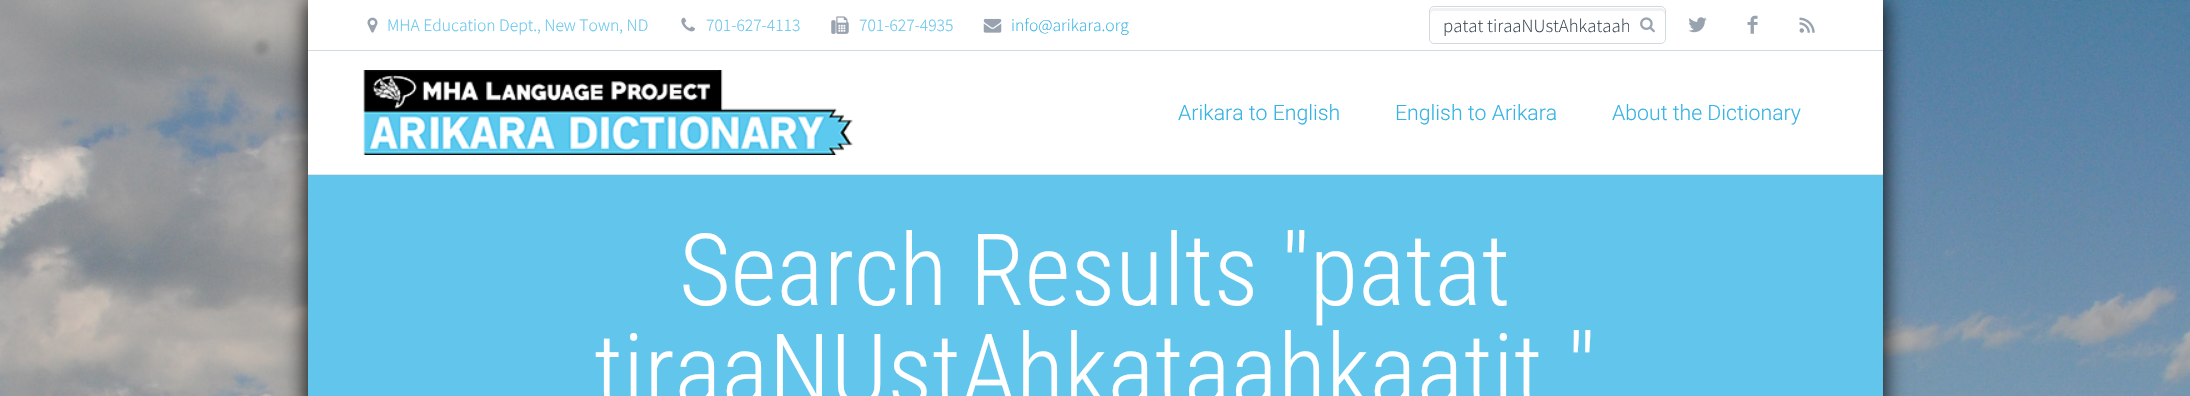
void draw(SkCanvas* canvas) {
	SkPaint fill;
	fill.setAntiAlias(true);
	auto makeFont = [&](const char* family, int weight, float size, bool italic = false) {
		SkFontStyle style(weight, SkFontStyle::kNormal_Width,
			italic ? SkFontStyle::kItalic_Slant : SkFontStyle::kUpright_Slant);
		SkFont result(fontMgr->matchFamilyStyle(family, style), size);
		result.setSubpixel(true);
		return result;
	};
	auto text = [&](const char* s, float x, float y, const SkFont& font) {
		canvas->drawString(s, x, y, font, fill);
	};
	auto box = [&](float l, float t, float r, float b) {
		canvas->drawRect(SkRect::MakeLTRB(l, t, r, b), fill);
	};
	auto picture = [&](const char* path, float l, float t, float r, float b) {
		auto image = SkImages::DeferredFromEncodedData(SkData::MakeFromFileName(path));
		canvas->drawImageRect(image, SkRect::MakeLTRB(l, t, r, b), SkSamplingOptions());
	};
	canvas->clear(0xFFFFFFFF);
	picture("image0.png", 0, 0, 2190, 396);
	fill.setColor(0xFF000000);
	fill.setMaskFilter(SkMaskFilter::MakeBlur(kNormal_SkBlurStyle, 11));
	canvas->drawRect(SkRect::MakeLTRB(308, 0, 1883, 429), fill);
	fill.setMaskFilter(nullptr);
	fill.setColor(0xFFFFFFFF);
	box(308, 0, 1883, 50);
	fill.setColor(0xFFD2DAE1);
	box(308, 50, 1883, 51);
	picture("image1.png", 367, 17, 378, 33);
	picture("image2.png", 681, 17, 695, 32);
	picture("image3.png", 831, 16, 849, 34);
	picture("image4.png", 983, 18, 1002, 33);
	fill.setColor(0xFFEFF1F2);
	canvas->drawPath(SkPathBuilder().moveTo(1434, 11).lineTo(1661, 11).cubicTo(1663, 11, 1665, 13, 1665, 15).lineTo(1665, 12).cubicTo(1665, 10, 1663, 8, 1661, 8).lineTo(1434, 8).cubicTo(1432, 8, 1430, 10, 1430, 12).lineTo(1430, 15).cubicTo(1430, 13, 1432, 11, 1434, 11).close().detach(), fill);
	fill.setStyle(SkPaint::kStroke_Style);
	fill.setStrokeWidth(1);
	fill.setColor(0xFFD2DAE1);
	canvas->drawRoundRect(SkRect::MakeLTRB(1429.5f, 6.5f, 1665.5f, 43.5f), 4.5f, 4.5f, fill);
	picture("image5.png", 1640, 17, 1655, 33);
	picture("image6.png", 1688, 17, 1707, 33);
	picture("image7.png", 1747, 15, 1758, 34);
	picture("image8.png", 1799, 17, 1815, 33);
	fill.setStyle(SkPaint::kFill_Style);
	fill.setColor(0xFFFFFFFF);
	box(308, 51, 1883, 174);
	fill.setColor(0xFFE6E6E6);
	box(308, 174, 1883, 175);
	picture("image9.png", 363, 70, 853, 155);
	fill.setColor(0xFF61C5EC);
	box(308, 175, 1883, 396);
	auto font1 = makeFont("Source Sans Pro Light", 300, 17.5f);
	text("MHA Education Dept., New Town, ND", 387, 31, font1);
	text("701-627-4113", 706, 31, font1);
	text("701-627-4935", 859, 31, font1);
	fill.setColor(0xFF34B3E6);
	text("info@arikara.org", 1011, 31, font1);
	canvas->save();
	canvas->clipRect(SkRect::MakeLTRB(1443, 14, 1629, 38));
	auto font2 = makeFont("Source Sans Pro Light", 300, 18.75f);
	fill.setColor(0xFF384554);
	text("patat tiraaNUstAhkataah", 1443, 32, font2);
	canvas->restore();
	auto font3 = makeFont("Roboto", 300, 21.25f);
	fill.setColor(0xFF34B3E6);
	text("Arikara to English", 1178, 120, font3);
	text("English to Arikara", 1395, 120, font3);
	text("About the Dictionary", 1612, 120, font3);
	auto font4 = makeFont("Roboto Condensed", 300, 100);
	fill.setColor(0xFFFFFFFF);
	text("Search Results \"patat", 679, 305, font4);
	text("tiraaNUstAhkataahkaatit.\"", 594, 405, font4);
}
